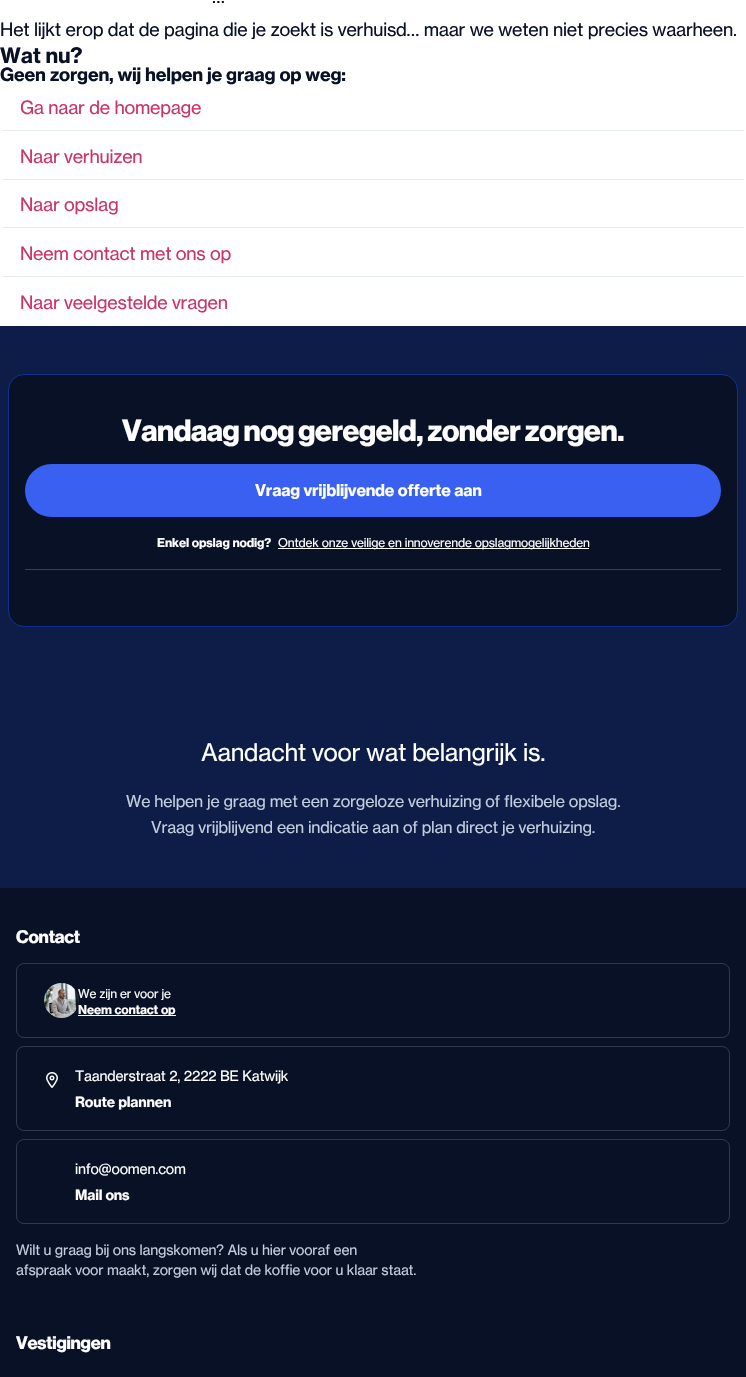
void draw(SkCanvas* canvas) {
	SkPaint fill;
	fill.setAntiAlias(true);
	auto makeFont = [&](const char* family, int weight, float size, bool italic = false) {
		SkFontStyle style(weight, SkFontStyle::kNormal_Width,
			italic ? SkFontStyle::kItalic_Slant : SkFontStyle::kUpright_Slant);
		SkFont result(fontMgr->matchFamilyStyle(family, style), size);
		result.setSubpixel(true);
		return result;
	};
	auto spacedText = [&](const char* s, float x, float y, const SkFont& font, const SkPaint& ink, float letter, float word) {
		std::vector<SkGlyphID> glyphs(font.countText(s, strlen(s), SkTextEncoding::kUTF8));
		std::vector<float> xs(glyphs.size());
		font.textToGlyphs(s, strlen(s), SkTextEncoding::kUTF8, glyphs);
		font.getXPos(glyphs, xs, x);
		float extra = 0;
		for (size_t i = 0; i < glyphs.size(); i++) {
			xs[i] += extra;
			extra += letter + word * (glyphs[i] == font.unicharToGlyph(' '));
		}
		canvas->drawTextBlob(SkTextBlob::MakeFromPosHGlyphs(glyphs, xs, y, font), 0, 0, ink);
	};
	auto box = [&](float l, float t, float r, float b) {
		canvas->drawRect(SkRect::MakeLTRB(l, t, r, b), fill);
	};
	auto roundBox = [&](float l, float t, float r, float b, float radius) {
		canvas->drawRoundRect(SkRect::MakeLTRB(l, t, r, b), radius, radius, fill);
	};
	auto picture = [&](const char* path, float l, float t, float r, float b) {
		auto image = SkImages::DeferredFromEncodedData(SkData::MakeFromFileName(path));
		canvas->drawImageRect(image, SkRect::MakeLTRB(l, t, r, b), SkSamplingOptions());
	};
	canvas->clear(0xFFFFFFFF);
	fill.setColor(0xFFE7EBF8);
	box(2, 130, 744, 131);
	box(2, 179, 744, 180);
	box(2, 227, 744, 228);
	box(2, 276, 744, 277);
	fill.setColor(0xFF081125);
	box(0, 888, 746, 1377);
	fill.setColor(0xFF0D1D48);
	box(0, 326, 746, 888);
	fill.setColor(0xFF081125);
	canvas->drawRoundRect(SkRect::MakeLTRB(8.5f, 374.5f, 737.5f, 626.5f), 15.5f, 15.5f, fill);
	fill.setStyle(SkPaint::kStroke_Style);
	fill.setStrokeWidth(1);
	fill.setColor(0xFF132F92);
	canvas->drawRoundRect(SkRect::MakeLTRB(8.5f, 374.5f, 737.5f, 626.5f), 15.5f, 15.5f, fill);
	fill.setStyle(SkPaint::kFill_Style);
	fill.setColor(0xFF3960F0);
	roundBox(25, 464, 721, 517, 26.5f);
	fill.setColor(0xFFFFFFFF);
	box(278, 548, 589, 549);
	fill.setColor(0xFF394151);
	box(25, 569, 721, 570);
	fill.setStyle(SkPaint::kStroke_Style);
	fill.setColor(0xFF313A4C);
	canvas->drawRoundRect(SkRect::MakeLTRB(16.5f, 963.5f, 729.5f, 1037.5f), 7.5f, 7.5f, fill);
	picture("image0.png", 44, 983, 79, 1018);
	fill.setStyle(SkPaint::kFill_Style);
	fill.setColor(0xFFFFFFFF);
	box(78, 1015, 176, 1016);
	fill.setStyle(SkPaint::kStroke_Style);
	fill.setColor(0xFF313A4C);
	canvas->drawRoundRect(SkRect::MakeLTRB(16.5f, 1046.5f, 729.5f, 1130.5f), 7.5f, 7.5f, fill);
	picture("image1.png", 46, 1072, 58, 1088);
	canvas->drawRoundRect(SkRect::MakeLTRB(16.5f, 1139.5f, 729.5f, 1223.5f), 7.5f, 7.5f, fill);
	auto font1 = makeFont("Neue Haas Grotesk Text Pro", 400, 18);
	fill.setStyle(SkPaint::kFill_Style);
	fill.setColor(0xFF081125);
	spacedText("…", 212, 3, font1, fill, -0.23f, 1);
	spacedText("Het lijkt erop dat de pagina die je zoekt is verhuisd… maar we weten niet precies waarheen.", 0, 36, font1, fill, -0.23f, 0);
	auto font2 = makeFont("Neue Haas Grotesk Text Pro", 700, 21);
	spacedText("Wat nu?", 0, 63, font2, fill, -0.23f, 0);
	auto font3 = makeFont("Neue Haas Grotesk Text Pro", 700, 18);
	spacedText("Geen zorgen, wij helpen je graag op weg:", 0, 81, font3, fill, -0.23f, 0);
	fill.setColor(0xFFCC3366);
	spacedText("Ga naar de homepage", 20, 114, font1, fill, -0.23f, 0);
	spacedText("Naar verhuizen", 20, 163, font1, fill, -0.23f, 0);
	spacedText("Naar opslag", 20, 211, font1, fill, -0.23f, 0);
	spacedText("Neem contact met ons op", 20, 260, font1, fill, -0.23f, 0);
	spacedText("Naar veelgestelde vragen", 20, 309, font1, fill, -0.23f, 0);
	auto font4 = makeFont("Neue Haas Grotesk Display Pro", 700, 30);
	fill.setColor(0xFFFFFFFF);
	spacedText("Vandaag nog geregeld, zonder zorgen.", 122, 441, font4, fill, -0.4f, 0);
	auto font5 = makeFont("Neue Haas Grotesk Text Pro", 700, 16);
	spacedText("Vraag vrijblijvende offerte aan", 255, 496, font5, fill, -0.23f, 0);
	auto font6 = makeFont("Neue Haas Grotesk Text Pro", 700, 12);
	spacedText("Enkel opslag nodig?", 157, 547, font6, fill, -0.15f, 0);
	auto font7 = makeFont("Neue Haas Grotesk Text Pro", 400, 12);
	spacedText("Ontdek onze veilige en innoverende opslagmogelijkheden", 278, 547, font7, fill, -0.15f, 0);
	auto font8 = makeFont("Neue Haas Grotesk Text Pro", 400, 24);
	spacedText("Aandacht voor wat belangrijk is.", 201, 761, font8, fill, -0.3f, 0);
	auto font9 = makeFont("Neue Haas Grotesk Text Pro", 400, 16);
	fill.setColor(0xFFC3CDDD);
	spacedText("We helpen je graag met een zorgeloze verhuizing of flexibele opslag.", 126, 807, font9, fill, -0.2f, 0);
	spacedText("Vraag vrijblijvend een indicatie aan of plan direct je verhuizing.", 151, 833, font9, fill, -0.2f, 0);
	auto font10 = makeFont("Neue Haas Grotesk Display Pro", 700, 18);
	fill.setColor(0xFFFFFFFF);
	spacedText("Contact", 16, 943, font10, fill, -0.23f, 0);
	spacedText("We zijn er voor je", 78, 998, font7, fill, -0.15f, 0);
	spacedText("Neem contact op", 78, 1014, font6, fill, -0.15f, 0);
	auto font11 = makeFont("Neue Haas Grotesk Text Pro", 400, 14);
	spacedText("Taanderstraat 2, 2222 BE Katwijk", 75, 1081, font11, fill, -0.17f, 0);
	auto font12 = makeFont("Neue Haas Grotesk Text Pro", 700, 14);
	spacedText("Route plannen", 75, 1107, font12, fill, -0.17f, 0);
	spacedText("info@oomen.com", 75, 1174, font11, fill, -0.17f, 0);
	spacedText("Mail ons", 75, 1200, font12, fill, -0.17f, 0);
	fill.setColor(0xFFC3CDDD);
	spacedText("Wilt u graag bij ons langskomen? Als u hier vooraf een", 16, 1255, font11, fill, -0.17f, 0);
	spacedText("afspraak voor maakt, zorgen wij dat de koffie voor u klaar staat.", 16, 1275, font11, fill, -0.17f, 0);
	fill.setColor(0xFFFFFFFF);
	spacedText("Vestigingen", 16, 1349, font10, fill, -0.23f, 0);
}
